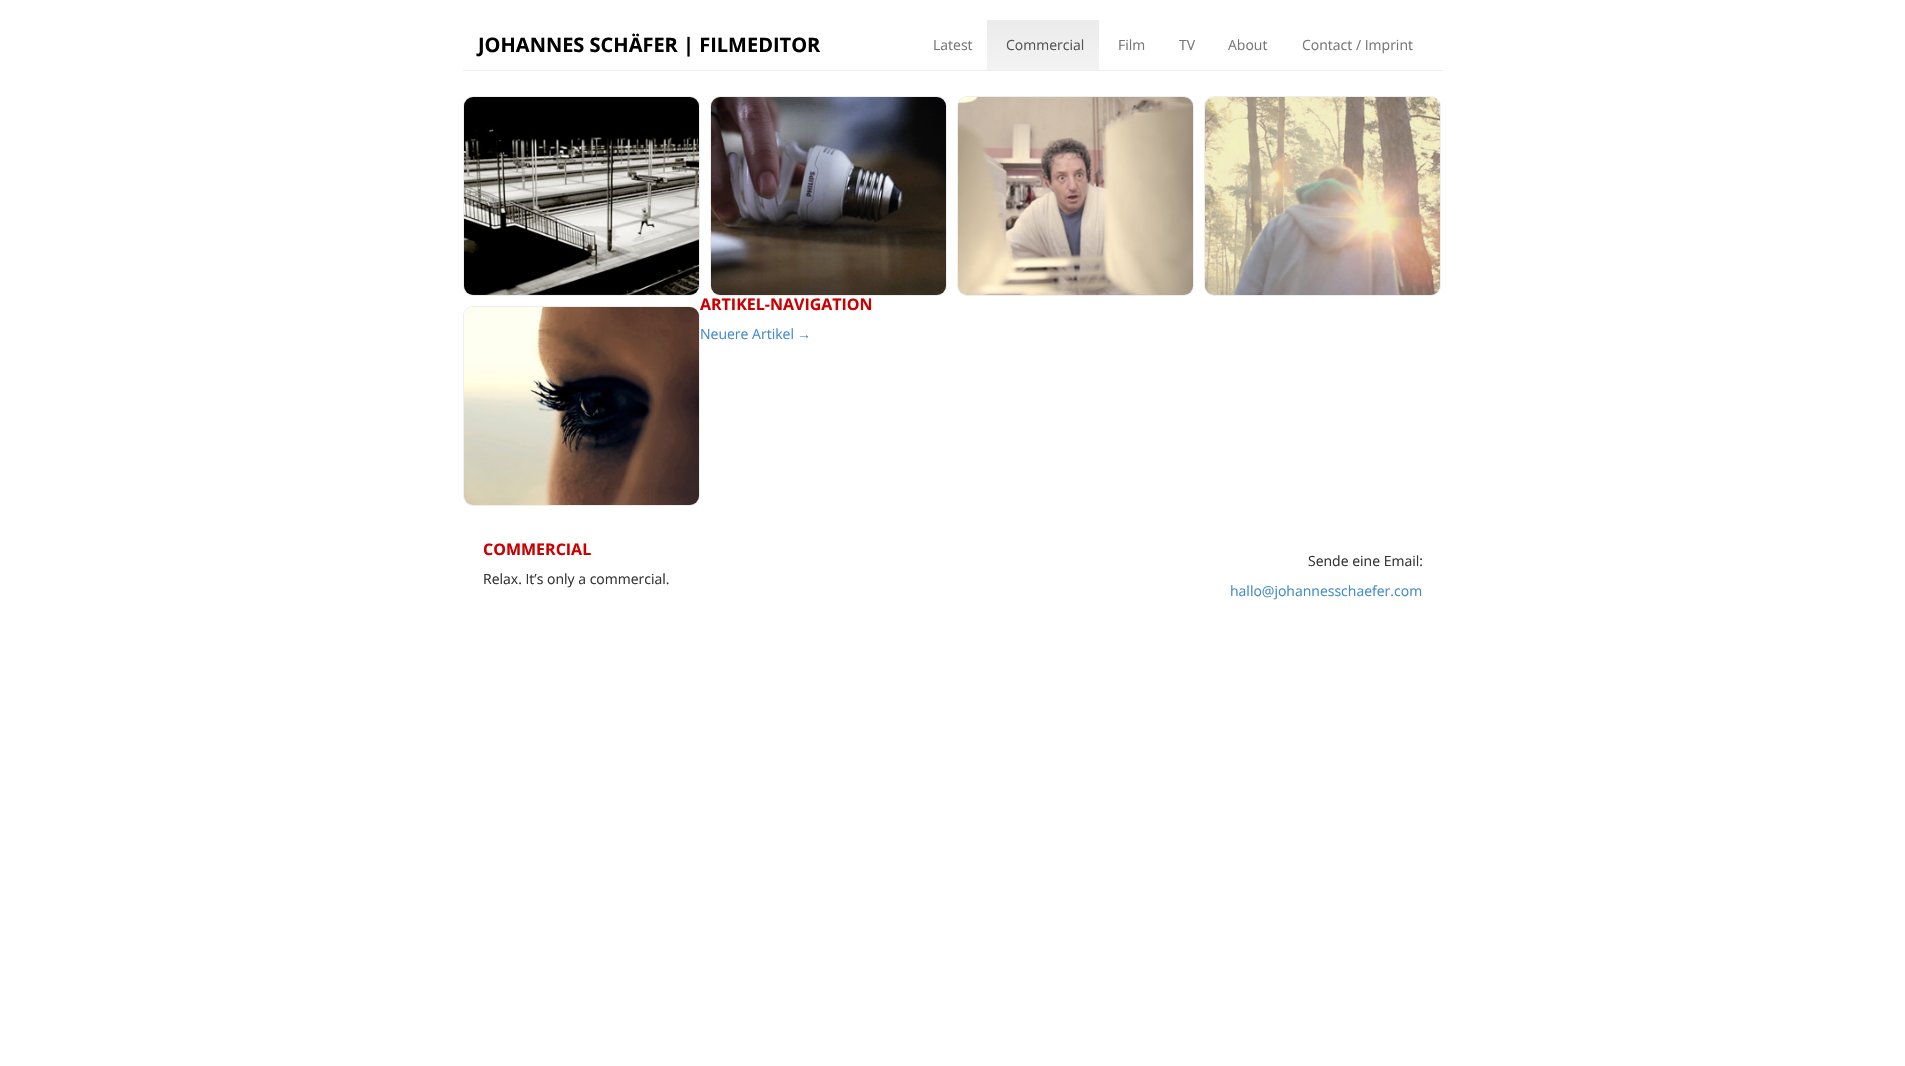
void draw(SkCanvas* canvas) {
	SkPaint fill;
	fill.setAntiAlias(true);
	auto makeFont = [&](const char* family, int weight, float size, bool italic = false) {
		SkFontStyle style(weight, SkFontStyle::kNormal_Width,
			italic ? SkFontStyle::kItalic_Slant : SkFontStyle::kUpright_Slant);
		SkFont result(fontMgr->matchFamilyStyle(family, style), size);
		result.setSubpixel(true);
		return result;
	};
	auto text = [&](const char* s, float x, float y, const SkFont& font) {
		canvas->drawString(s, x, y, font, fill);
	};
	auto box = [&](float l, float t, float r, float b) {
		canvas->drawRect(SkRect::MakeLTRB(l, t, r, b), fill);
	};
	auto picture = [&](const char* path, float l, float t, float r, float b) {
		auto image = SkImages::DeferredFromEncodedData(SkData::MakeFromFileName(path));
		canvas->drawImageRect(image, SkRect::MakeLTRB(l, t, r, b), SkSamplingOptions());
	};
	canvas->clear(0xFFFFFFFF);
	fill.setColor(0xFFEEEEEE);
	box(463, 70, 1443, 71);
	{
		const SkColor colors[] = {0xFFEBEBEB, 0xFFF3F3F3};
		const float stops[] = {0, 1};
		const SkPoint ends[] = {{1043, 20}, {1043, 70}};
		fill.setShader(SkGradientShader::MakeLinear(ends, colors, stops, 2, SkTileMode::kClamp));
		fill.setAlpha(255);
	}
	box(987, 20, 1099, 70);
	fill.setStyle(SkPaint::kStroke_Style);
	fill.setStrokeWidth(1);
	fill.setShader(nullptr);
	fill.setColor(0xFFEEEEEE);
	canvas->drawRoundRect(SkRect::MakeLTRB(463.5f, 96.5f, 699.5f, 295.5f), 9.5f, 9.5f, fill);
	picture("image0.png", 464, 97, 699, 295);
	canvas->drawRoundRect(SkRect::MakeLTRB(710.5f, 96.5f, 946.5f, 295.5f), 9.5f, 9.5f, fill);
	picture("image1.png", 711, 97, 946, 295);
	canvas->drawRoundRect(SkRect::MakeLTRB(957.5f, 96.5f, 1193.5f, 295.5f), 9.5f, 9.5f, fill);
	picture("image2.png", 958, 97, 1193, 295);
	canvas->drawRoundRect(SkRect::MakeLTRB(1204.5f, 96.5f, 1440.5f, 295.5f), 9.5f, 9.5f, fill);
	picture("image3.png", 1205, 97, 1440, 295);
	auto font1 = makeFont("Open Sans", 700, 20);
	fill.setStyle(SkPaint::kFill_Style);
	fill.setColor(0xFF000000);
	text("JOHANNES SCHÄFER | FILMEDITOR", 478, 52, font1);
	auto font2 = makeFont("Open Sans", 400, 14);
	fill.setColor(0xFF777777);
	text("Latest", 933, 50, font2);
	fill.setColor(0xFF555555);
	text("Commercial", 1006, 50, font2);
	fill.setColor(0xFF777777);
	text("Film", 1118, 50, font2);
	text("TV", 1179, 50, font2);
	text("About", 1228, 50, font2);
	text("Contact / Imprint", 1302, 50, font2);
	auto font3 = makeFont("Open Sans", 700, 16);
	fill.setColor(0xFFCC0000);
	text("ARTIKEL-NAVIGATION", 700, 310, font3);
	fill.setStyle(SkPaint::kStroke_Style);
	fill.setColor(0xFFEEEEEE);
	canvas->drawRoundRect(SkRect::MakeLTRB(463.5f, 306.5f, 699.5f, 505.5f), 9.5f, 9.5f, fill);
	picture("image4.png", 464, 307, 699, 505);
	fill.setStyle(SkPaint::kFill_Style);
	fill.setColor(0xFF428BCA);
	text("Neuere Artikel", 700, 339, font2);
	auto font4 = makeFont("Liberation Sans", 400, 14);
	text("→", 797, 339, font4);
	fill.setColor(0xFFCC0000);
	text("COMMERCIAL", 483, 555, font3);
	fill.setColor(0xFF333333);
	text("Relax. It’s only a commercial.", 483, 584, font2);
	text("Sende eine Email:", 1308, 566, font2);
	fill.setColor(0xFF428BCA);
	text("hallo@johannesschaefer.com", 1230, 596, font2);
}
